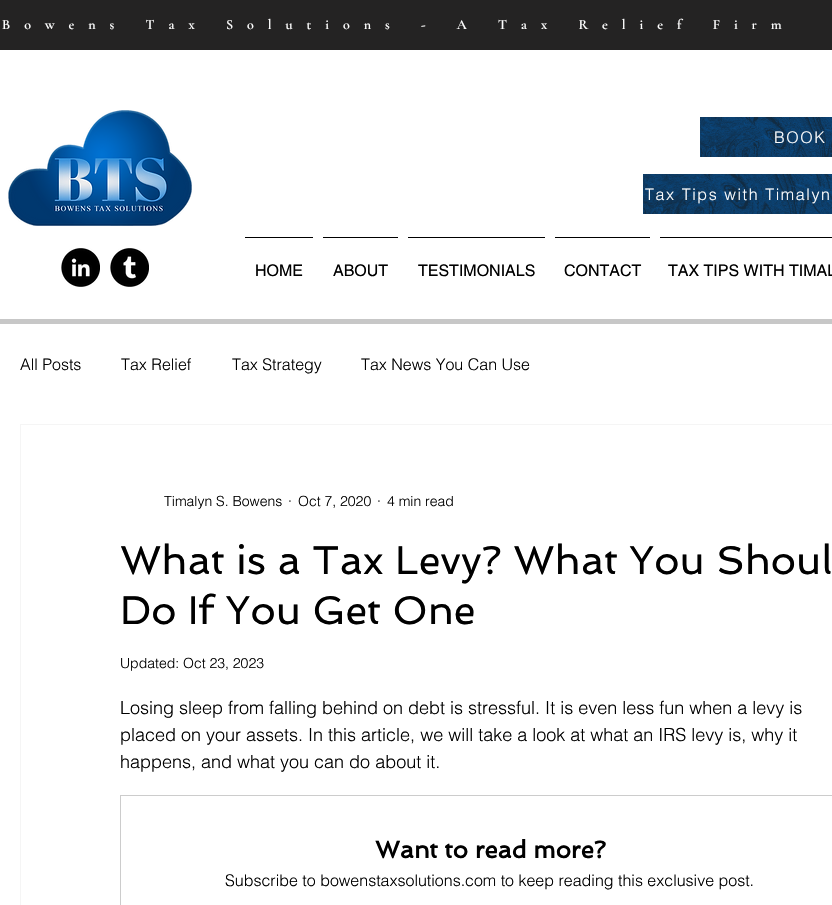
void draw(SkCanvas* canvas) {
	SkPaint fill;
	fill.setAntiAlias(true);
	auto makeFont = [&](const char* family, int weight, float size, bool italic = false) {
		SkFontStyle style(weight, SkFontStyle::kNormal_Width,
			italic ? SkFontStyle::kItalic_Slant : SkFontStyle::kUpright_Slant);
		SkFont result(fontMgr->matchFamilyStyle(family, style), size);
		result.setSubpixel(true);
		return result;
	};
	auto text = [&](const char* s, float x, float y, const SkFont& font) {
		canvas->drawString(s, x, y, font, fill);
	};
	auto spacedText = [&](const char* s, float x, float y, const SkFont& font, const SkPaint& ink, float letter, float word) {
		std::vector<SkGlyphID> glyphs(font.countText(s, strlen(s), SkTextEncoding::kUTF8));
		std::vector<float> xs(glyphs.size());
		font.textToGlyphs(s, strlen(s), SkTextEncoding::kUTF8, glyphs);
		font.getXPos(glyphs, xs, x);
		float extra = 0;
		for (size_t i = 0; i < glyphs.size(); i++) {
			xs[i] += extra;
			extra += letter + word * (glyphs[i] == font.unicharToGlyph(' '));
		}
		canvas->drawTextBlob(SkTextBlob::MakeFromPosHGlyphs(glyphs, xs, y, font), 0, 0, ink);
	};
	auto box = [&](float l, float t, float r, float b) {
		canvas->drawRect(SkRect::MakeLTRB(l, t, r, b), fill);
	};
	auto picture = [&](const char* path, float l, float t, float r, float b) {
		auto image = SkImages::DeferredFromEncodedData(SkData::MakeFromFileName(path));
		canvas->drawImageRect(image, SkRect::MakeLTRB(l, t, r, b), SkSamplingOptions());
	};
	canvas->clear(0xFFFFFFFF);
	fill.setColor(0xFF242323);
	box(0, 0, 832, 50);
	picture("image0.png", 8, 110, 192, 226);
	picture("image1.png", 700, 117, 832, 157);
	picture("image2.png", 643, 174, 832, 214);
	picture("image3.png", 61, 248, 100, 287);
	picture("image4.png", 110, 248, 149, 287);
	fill.setColor(0xFF000000);
	box(245, 237, 313, 238);
	box(323, 237, 398, 238);
	box(408, 237, 545, 238);
	box(555, 237, 650, 238);
	box(660, 237, 832, 238);
	fill.setColor(0xFFC7C7C7);
	box(0, 319, 832, 324);
	fill.setStyle(SkPaint::kStroke_Style);
	fill.setStrokeWidth(1);
	fill.setColor(0xFFF5F5F5);
	canvas->drawRect(SkRect::MakeLTRB(20.5f, 424.5f, 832.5f, 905.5f), fill);
	fill.setColor(0xFFCCCCCC);
	canvas->drawRect(SkRect::MakeLTRB(120.5f, 795.5f, 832.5f, 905.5f), fill);
	auto font1 = makeFont("Cormorant Garamond", 600, 14);
	fill.setStyle(SkPaint::kFill_Style);
	fill.setColor(0xFFFFFFFF);
	spacedText("Bowens Tax Solutions - A Tax Relief Firm", 2, 29, font1, fill, 14, 0);
	auto font2 = makeFont("helvetica", 300, 16);
	spacedText("BOOK", 774, 143, font2, fill, 1.6f, 0);
	spacedText("Tax Tips with Timalyn", 645, 200, font2, fill, 1.6f, 0);
	auto font3 = makeFont("helvetica", 400, 16);
	fill.setColor(0xFF000000);
	text("HOME", 255, 276, font3);
	text("ABOUT", 333, 276, font3);
	text("TESTIMONIALS", 418, 276, font3);
	text("CONTACT", 564, 276, font3);
	text("TAX TIPS WITH TIMAL", 668, 276, font3);
	text("All Posts", 20, 370, font2);
	text("Tax Relief", 121, 370, font2);
	text("Tax Strategy", 232, 370, font2);
	text("Tax News You Can Use", 361, 370, font2);
	auto font4 = makeFont("helvetica", 300, 14);
	text("Timalyn S. Bowens", 164, 506, font4);
	text("·", 288, 506, font4);
	text("Oct 7, 2020", 298, 506, font4);
	text("·", 377, 506, font4);
	text("4 min read", 387, 506, font4);
	auto font5 = makeFont("Spinnaker", 400, 40);
	text("What is a Tax Levy? What You Shoul", 120, 574, font5);
	text("Do If You Get One", 120, 624, font5);
	text("Updated: Oct 23, 2023", 120, 668, font4);
	auto font6 = makeFont("helvetica", 300, 18);
	text("Losing sleep from falling behind on debt is stressful. It is even less fun when a levy is", 120, 714, font6);
	text("placed on your assets. In this article, we will take a look at what an IRS levy is, why it", 120, 741, font6);
	text("happens, and what you can do about it.", 120, 768, font6);
	auto font7 = makeFont("Spinnaker", 700, 24);
	text("Want to read more?", 375, 858, font7);
	text("Subscribe to bowenstaxsolutions.com to keep reading this exclusive post.", 225, 886, font2);
}
